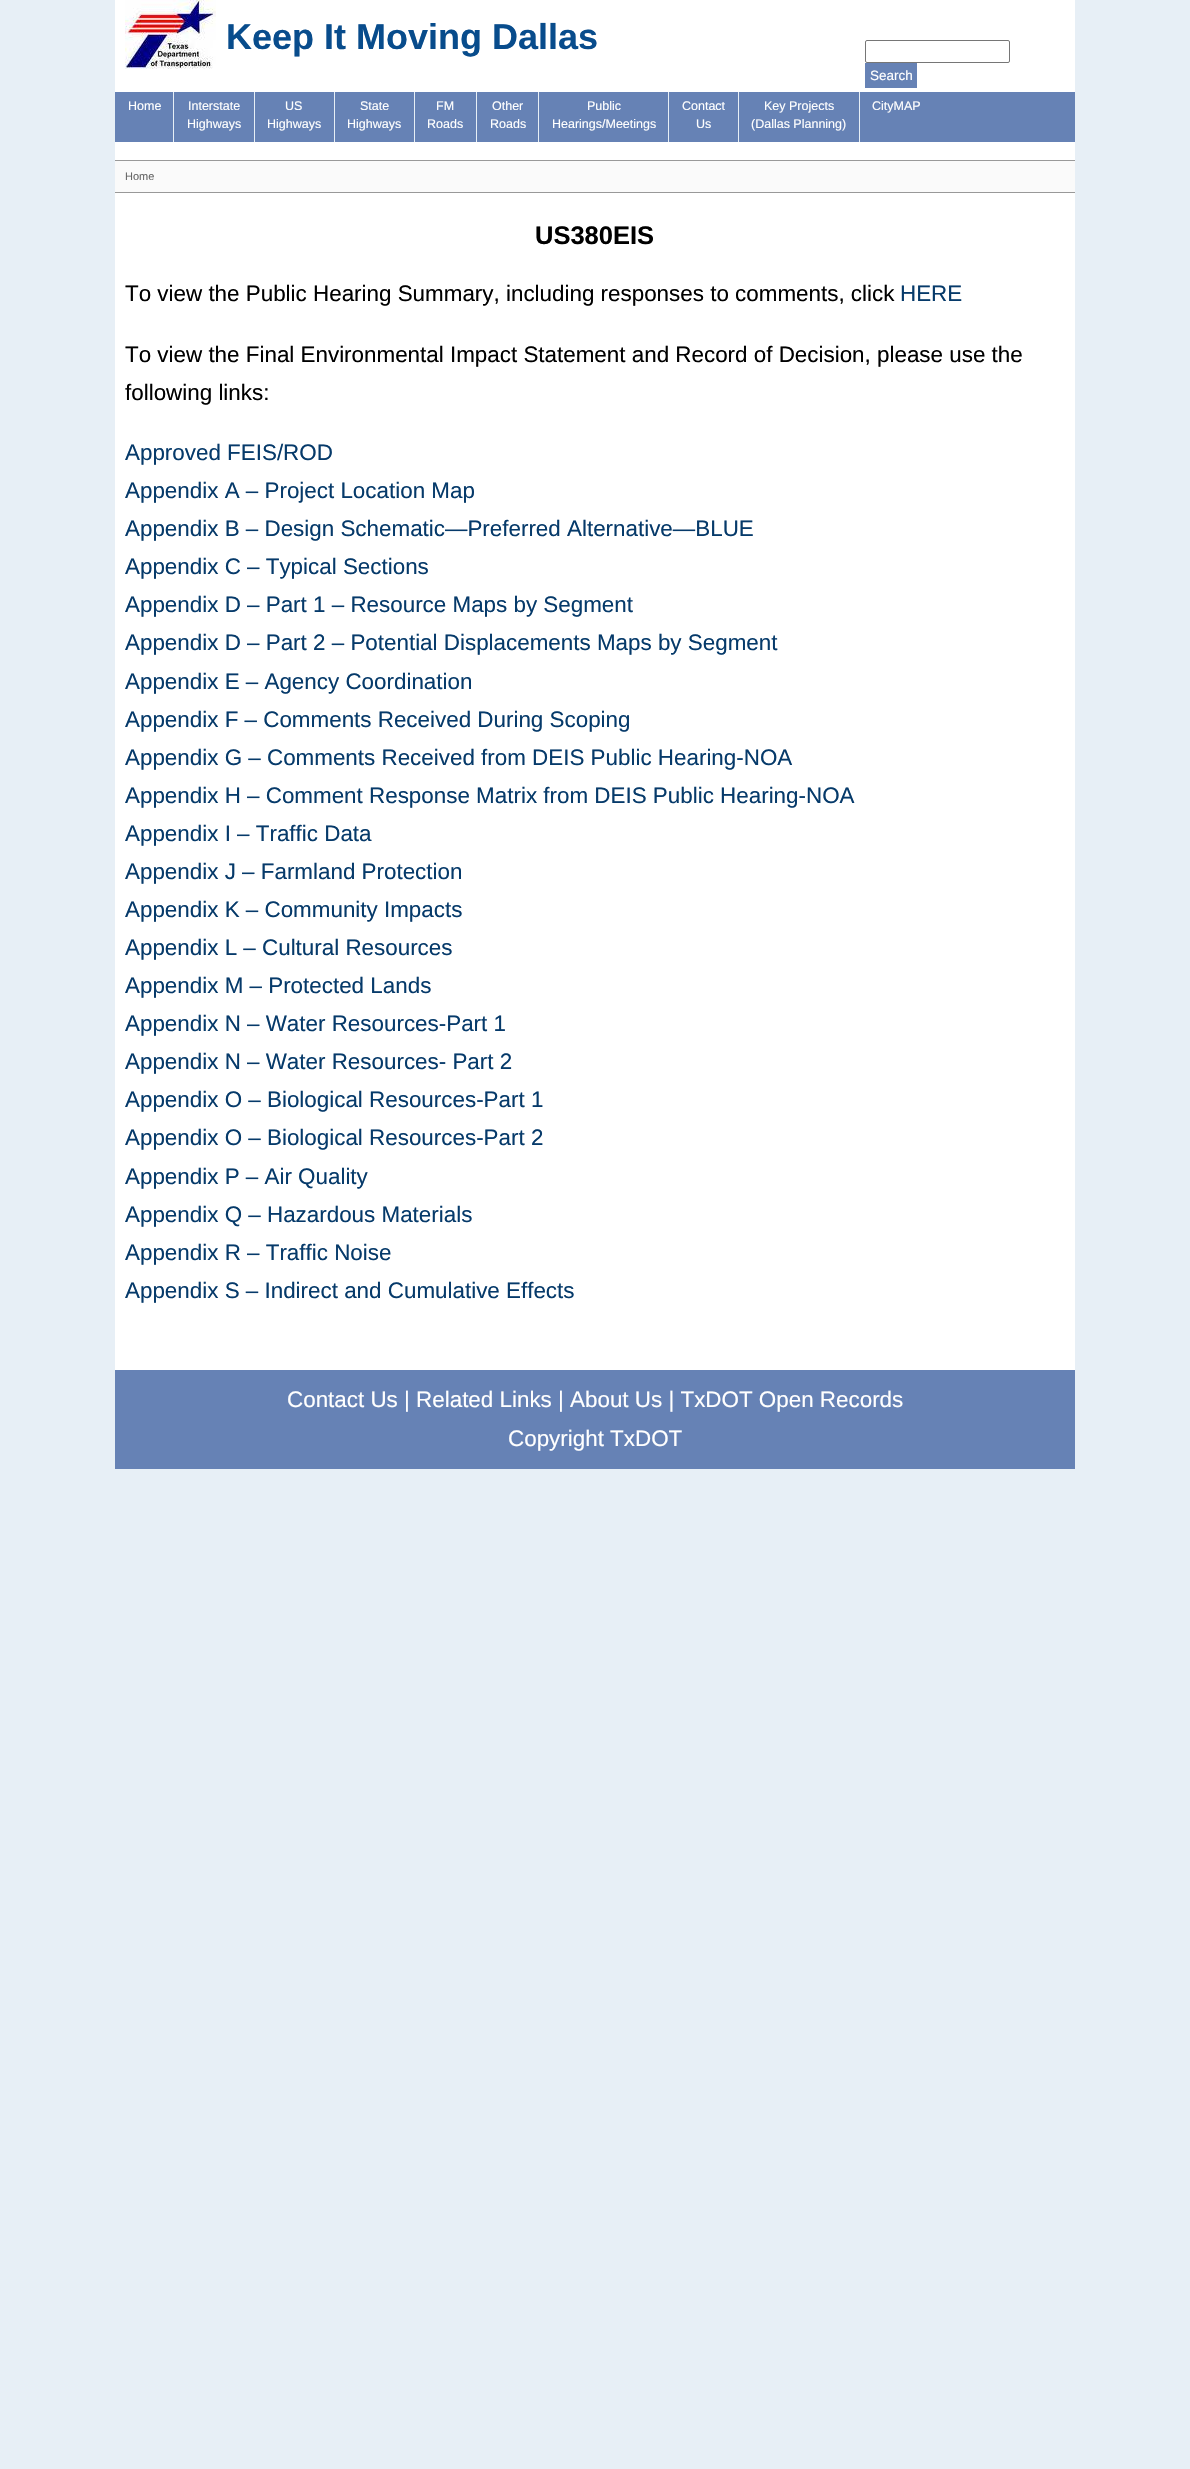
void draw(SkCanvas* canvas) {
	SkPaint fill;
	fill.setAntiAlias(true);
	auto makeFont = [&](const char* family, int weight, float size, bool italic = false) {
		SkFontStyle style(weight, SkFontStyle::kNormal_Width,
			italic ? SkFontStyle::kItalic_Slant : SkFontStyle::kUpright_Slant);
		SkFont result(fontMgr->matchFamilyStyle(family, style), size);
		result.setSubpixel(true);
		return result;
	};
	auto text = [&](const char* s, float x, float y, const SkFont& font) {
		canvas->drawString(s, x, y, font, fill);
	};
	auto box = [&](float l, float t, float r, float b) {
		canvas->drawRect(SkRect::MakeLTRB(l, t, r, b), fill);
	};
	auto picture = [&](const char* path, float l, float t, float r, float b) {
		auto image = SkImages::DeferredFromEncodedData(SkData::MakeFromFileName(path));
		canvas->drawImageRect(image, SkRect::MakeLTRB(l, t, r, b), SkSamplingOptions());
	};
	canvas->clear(0xFFE7EFF6);
	fill.setColor(0xFFFFFFFF);
	box(115, 0, 1075, 92);
	picture("image0.png", 125, 0, 216, 69);
	fill.setStyle(SkPaint::kStroke_Style);
	fill.setStrokeWidth(1);
	fill.setColor(0xFF767676);
	canvas->drawRoundRect(SkRect::MakeLTRB(865.5f, 40.5f, 1009.5f, 62.5f), 1.5f, 1.5f, fill);
	fill.setStyle(SkPaint::kFill_Style);
	fill.setColor(0xFF6682B5);
	box(865, 63, 917, 88);
	box(115, 92, 1075, 142);
	fill.setColor(0xFFE7EFF6);
	box(173, 92, 174, 142);
	box(254, 92, 255, 142);
	box(334, 92, 335, 142);
	box(414, 92, 415, 142);
	box(476, 92, 477, 142);
	box(538, 92, 539, 142);
	box(668, 92, 669, 142);
	box(738, 92, 739, 142);
	box(859, 92, 860, 142);
	fill.setColor(0xFFFFFFFF);
	box(115, 142, 1075, 1370);
	fill.setColor(0xFFFAFAFA);
	box(115, 161, 1075, 192);
	fill.setColor(0xFF999999);
	box(115, 160, 1075, 161);
	box(115, 192, 1075, 193);
	fill.setColor(0xFF6682B5);
	box(115, 1370, 1075, 1469);
	auto font1 = makeFont("Liberation Sans", 700, 36);
	fill.setColor(0xFF084C8C);
	text("Keep It Moving Dallas", 226, 49, font1);
	auto font2 = makeFont("Liberation Sans", 400, 13.5f);
	fill.setColor(0xFFFFFFFF);
	text("Search", 870, 80, font2);
	auto font3 = makeFont("Liberation Sans", 400, 12.5f);
	text("Home", 128, 110, font3);
	text("Interstate", 188, 110, font3);
	text("Highways", 187, 128, font3);
	text("US", 285, 110, font3);
	text("Highways", 267, 128, font3);
	text("State", 360, 110, font3);
	text("Highways", 347, 128, font3);
	text("FM", 436, 110, font3);
	text("Roads", 427, 128, font3);
	text("Other", 492, 110, font3);
	text("Roads", 490, 128, font3);
	text("Public", 587, 110, font3);
	text("Hearings/Meetings", 552, 128, font3);
	text("Contact", 682, 110, font3);
	text("Us", 696, 128, font3);
	text("Key Projects", 764, 110, font3);
	text("(Dallas Planning)", 751, 128, font3);
	text("CityMAP", 872, 110, font3);
	auto font4 = makeFont("Liberation Sans", 400, 11);
	fill.setColor(0xFF666666);
	text("Home", 125, 180, font4);
	auto font5 = makeFont("Liberation Sans", 700, 25.5f);
	fill.setColor(0xFF000000);
	text("US380EIS", 535, 244, font5);
	auto font6 = makeFont("Liberation Sans", 400, 22.4f);
	text("To view the Public Hearing Summary, including responses to comments, click", 125, 301, font6);
	fill.setColor(0xFF063A6A);
	text("HERE", 900, 301, font6);
	fill.setColor(0xFF000000);
	text("To view the Final Environmental Impact Statement and Record of Decision, please use the", 125, 362, font6);
	text("following links:", 125, 400, font6);
	fill.setColor(0xFF063A6A);
	text("Approved FEIS/ROD", 125, 460, font6);
	text("Appendix A – Project Location Map", 125, 498, font6);
	text("Appendix B – Design Schematic—Preferred Alternative—BLUE", 125, 536, font6);
	text("Appendix C – Typical Sections", 125, 574, font6);
	text("Appendix D – Part 1 – Resource Maps by Segment", 125, 612, font6);
	text("Appendix D – Part 2 – Potential Displacements Maps by Segment", 125, 650, font6);
	text("Appendix E – Agency Coordination", 125, 689, font6);
	text("Appendix F – Comments Received During Scoping", 125, 727, font6);
	text("Appendix G – Comments Received from DEIS Public Hearing-NOA", 125, 765, font6);
	text("Appendix H – Comment Response Matrix from DEIS Public Hearing-NOA", 125, 803, font6);
	text("Appendix I – Traffic Data", 125, 841, font6);
	text("Appendix J – Farmland Protection", 125, 879, font6);
	text("Appendix K – Community Impacts", 125, 917, font6);
	text("Appendix L – Cultural Resources", 125, 955, font6);
	text("Appendix M – Protected Lands", 125, 993, font6);
	text("Appendix N – Water Resources-Part 1", 125, 1031, font6);
	text("Appendix N – Water Resources- Part 2", 125, 1069, font6);
	text("Appendix O – Biological Resources-Part 1", 125, 1107, font6);
	text("Appendix O – Biological Resources-Part 2", 125, 1145, font6);
	text("Appendix P – Air Quality", 125, 1184, font6);
	text("Appendix Q – Hazardous Materials", 125, 1222, font6);
	text("Appendix R – Traffic Noise", 125, 1260, font6);
	text("Appendix S – Indirect and Cumulative Effects", 125, 1298, font6);
	fill.setColor(0xFFFFFFFF);
	text("Contact Us | Related Links | About Us | TxDOT Open Records", 287, 1407, font6);
	text("Copyright TxDOT", 508, 1446, font6);
}
